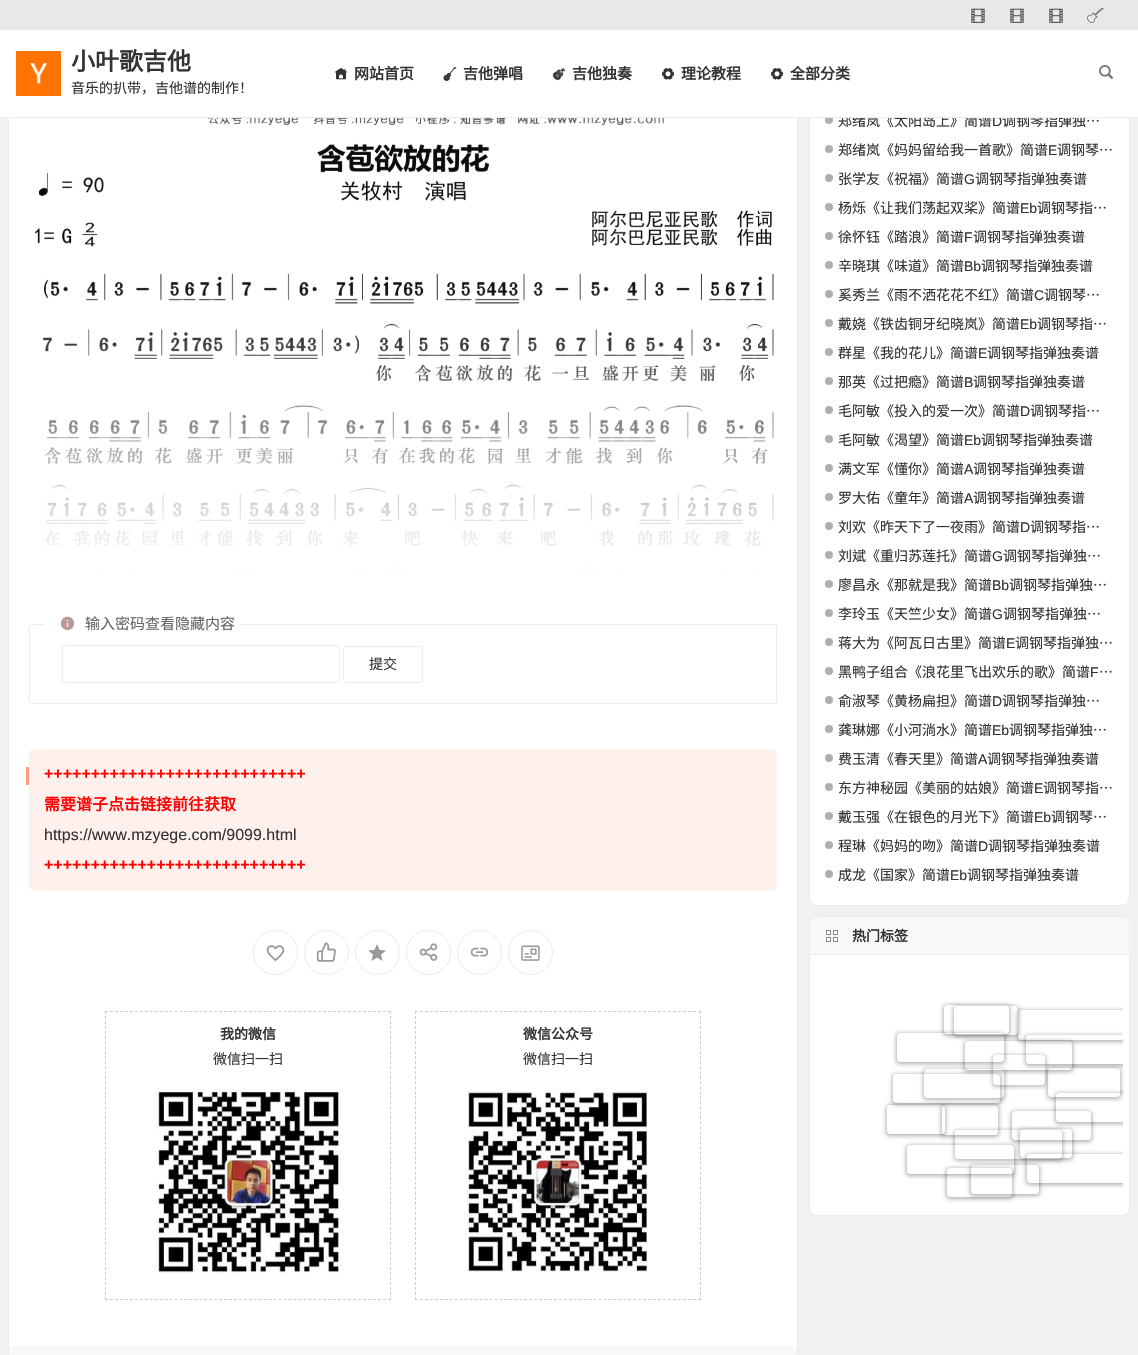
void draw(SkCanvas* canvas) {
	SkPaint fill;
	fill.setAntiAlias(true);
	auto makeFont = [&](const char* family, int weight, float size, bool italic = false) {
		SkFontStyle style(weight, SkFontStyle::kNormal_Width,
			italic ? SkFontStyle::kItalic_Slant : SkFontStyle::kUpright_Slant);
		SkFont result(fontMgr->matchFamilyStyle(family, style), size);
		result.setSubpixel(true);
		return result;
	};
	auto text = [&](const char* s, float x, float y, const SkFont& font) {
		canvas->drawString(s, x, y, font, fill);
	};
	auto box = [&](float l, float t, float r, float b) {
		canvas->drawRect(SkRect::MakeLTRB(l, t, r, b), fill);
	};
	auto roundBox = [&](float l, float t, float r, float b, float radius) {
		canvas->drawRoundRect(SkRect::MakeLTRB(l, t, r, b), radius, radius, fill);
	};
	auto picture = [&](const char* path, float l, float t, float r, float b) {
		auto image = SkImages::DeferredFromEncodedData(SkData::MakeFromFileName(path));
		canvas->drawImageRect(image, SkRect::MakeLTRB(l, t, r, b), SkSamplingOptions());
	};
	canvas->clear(0xFFF1F1F1);
	fill.setColor(0xFFFFFFFF);
	box(9, 118, 797, 1346);
	fill.setStyle(SkPaint::kStroke_Style);
	fill.setStrokeWidth(1);
	fill.setColor(0xFFECECEC);
	canvas->drawRect(SkRect::MakeLTRB(8.5f, -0.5f, 797.5f, 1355.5f), fill);
	fill.setStyle(SkPaint::kFill_Style);
	fill.setColor(0xFFFFFFFF);
	canvas->drawRoundRect(SkRect::MakeLTRB(809.5f, -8.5f, 1129.5f, 905.5f), 7.5f, 7.5f, fill);
	fill.setStyle(SkPaint::kStroke_Style);
	fill.setColor(0xFFECECEC);
	canvas->drawRoundRect(SkRect::MakeLTRB(809.5f, -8.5f, 1129.5f, 905.5f), 7.5f, 7.5f, fill);
	fill.setStyle(SkPaint::kFill_Style);
	fill.setColor(0xFFE8E8E8);
	box(0, 0, 1138, 30);
	picture("image0.png", 971, 8, 985, 23);
	picture("image0.png", 1010, 8, 1024, 23);
	picture("image0.png", 1049, 8, 1063, 23);
	picture("image1.png", 1087, 8, 1104, 23);
	picture("image8.png", 34, 118, 774, 573);
	fill.setStyle(SkPaint::kStroke_Style);
	fill.setColor(0xFFECECEC);
	canvas->drawRoundRect(SkRect::MakeLTRB(29.5f, 624.5f, 776.5f, 703.5f), 2.5f, 2.5f, fill);
	fill.setStyle(SkPaint::kFill_Style);
	fill.setColor(0xFFFFFFFF);
	box(45, 624, 240, 625);
	picture("image9.png", 60, 616, 75, 630);
	fill.setStyle(SkPaint::kStroke_Style);
	fill.setColor(0xFFECECEC);
	canvas->drawRoundRect(SkRect::MakeLTRB(62.5f, 645.5f, 339.5f, 682.5f), 2.5f, 2.5f, fill);
	canvas->drawRoundRect(SkRect::MakeLTRB(343.5f, 646.5f, 422.5f, 682.5f), 2.5f, 2.5f, fill);
	fill.setStyle(SkPaint::kFill_Style);
	fill.setColor(0xFFFEF1ED);
	roundBox(29, 749, 777, 891, 5);
	fill.setColor(0xFFFA9F7E);
	box(26, 767, 29, 785);
	fill.setStyle(SkPaint::kStroke_Style);
	fill.setColor(0xFFECECEC);
	canvas->drawCircle(275.5f, 952.5f, 22, fill);
	picture("image10.png", 266, 945, 285, 962);
	canvas->drawCircle(326.5f, 952.5f, 22, fill);
	picture("image11.png", 316, 942, 336, 962);
	canvas->drawCircle(377.5f, 952.5f, 22, fill);
	picture("image12.png", 368, 944, 386, 961);
	canvas->drawCircle(428.5f, 952.5f, 22, fill);
	picture("image13.png", 419, 943, 438, 961);
	canvas->drawCircle(479.5f, 952.5f, 22, fill);
	picture("image14.png", 470, 947, 489, 957);
	canvas->drawCircle(530.5f, 952.5f, 22, fill);
	picture("image15.png", 521, 945, 540, 961);
	fill.setColor(0xFFCCCCCC);
	fill.setPathEffect(SkDashPathEffect::Make({{3, 1.96f}}, 0));
	canvas->drawPath(SkPathBuilder().moveTo(105, 1011.5f).lineTo(391, 1011.5f).detach(), fill);
	fill.setPathEffect(nullptr);
	fill.setPathEffect(SkDashPathEffect::Make({{3, 2.02f}}, 0));
	canvas->drawPath(SkPathBuilder().moveTo(390.5f, 1011).lineTo(390.5f, 1300).detach(), fill);
	fill.setPathEffect(nullptr);
	fill.setPathEffect(SkDashPathEffect::Make({{3, 1.96f}}, 0));
	canvas->drawPath(SkPathBuilder().moveTo(105, 1299.5f).lineTo(391, 1299.5f).detach(), fill);
	fill.setPathEffect(nullptr);
	fill.setPathEffect(SkDashPathEffect::Make({{3, 2.02f}}, 0));
	canvas->drawPath(SkPathBuilder().moveTo(105.5f, 1011).lineTo(105.5f, 1300).detach(), fill);
	fill.setPathEffect(nullptr);
	picture("image16.png", 154, 1088, 344, 1273);
	fill.setPathEffect(SkDashPathEffect::Make({{3, 1.96f}}, 0));
	canvas->drawPath(SkPathBuilder().moveTo(415, 1011.5f).lineTo(701, 1011.5f).detach(), fill);
	fill.setPathEffect(nullptr);
	fill.setPathEffect(SkDashPathEffect::Make({{3, 2.02f}}, 0));
	canvas->drawPath(SkPathBuilder().moveTo(700.5f, 1011).lineTo(700.5f, 1300).detach(), fill);
	fill.setPathEffect(nullptr);
	fill.setPathEffect(SkDashPathEffect::Make({{3, 1.96f}}, 0));
	canvas->drawPath(SkPathBuilder().moveTo(415, 1299.5f).lineTo(701, 1299.5f).detach(), fill);
	fill.setPathEffect(nullptr);
	fill.setPathEffect(SkDashPathEffect::Make({{3, 2.02f}}, 0));
	canvas->drawPath(SkPathBuilder().moveTo(415.5f, 1011).lineTo(415.5f, 1300).detach(), fill);
	fill.setPathEffect(nullptr);
	picture("image17.png", 464, 1088, 648, 1272);
	fill.setStyle(SkPaint::kFill_Style);
	fill.setColor(0xFFF8F8F8);
	box(9, 1346, 797, 1355);
	fill.setColor(0xFFAFAFAF);
	canvas->drawCircle(829, 120, 4, fill);
	canvas->drawCircle(829, 149, 4, fill);
	canvas->drawCircle(829, 178, 4, fill);
	canvas->drawCircle(829, 207, 4, fill);
	canvas->drawCircle(829, 236, 4, fill);
	canvas->drawCircle(829, 265, 4, fill);
	canvas->drawCircle(829, 294, 4, fill);
	canvas->drawCircle(829, 323, 4, fill);
	canvas->drawCircle(829, 352, 4, fill);
	canvas->drawCircle(829, 381, 4, fill);
	canvas->drawCircle(829, 410, 4, fill);
	canvas->drawCircle(829, 439, 4, fill);
	canvas->drawCircle(829, 468, 4, fill);
	canvas->drawCircle(829, 497, 4, fill);
	canvas->drawCircle(829, 526, 4, fill);
	canvas->drawCircle(829, 555, 4, fill);
	canvas->drawCircle(829, 584, 4, fill);
	canvas->drawCircle(829, 613, 4, fill);
	canvas->drawCircle(829, 642, 4, fill);
	canvas->drawCircle(829, 671, 4, fill);
	canvas->drawCircle(829, 700, 4, fill);
	canvas->drawCircle(829, 729, 4, fill);
	canvas->drawCircle(829, 758, 4, fill);
	canvas->drawCircle(829, 787, 4, fill);
	canvas->drawCircle(829, 816, 4, fill);
	canvas->drawCircle(829, 845, 4, fill);
	canvas->drawCircle(829, 874, 4, fill);
	fill.setColor(0xFFFFFFFF);
	canvas->drawRoundRect(SkRect::MakeLTRB(809.5f, 916.5f, 1129.5f, 1215.5f), 7.5f, 7.5f, fill);
	fill.setStyle(SkPaint::kStroke_Style);
	fill.setColor(0xFFECECEC);
	canvas->drawRoundRect(SkRect::MakeLTRB(809.5f, 916.5f, 1129.5f, 1215.5f), 7.5f, 7.5f, fill);
	fill.setStyle(SkPaint::kFill_Style);
	fill.setColor(0xFFF8F8F8);
	canvas->drawPath(SkPathBuilder().moveTo(817, 917).lineTo(1122, 917).cubicTo(1126, 917, 1129, 920, 1129, 924).lineTo(1129, 955).lineTo(810, 955).lineTo(810, 924).cubicTo(810, 920, 813, 917, 817, 917).close().detach(), fill);
	fill.setColor(0xFFECECEC);
	box(810, 954, 1129, 955);
	fill.setColor(0xFFFFFFFF);
	canvas->drawRect(SkRect::MakeLTRB(826.5f, 930.5f, 830.5f, 934.5f), fill);
	fill.setStyle(SkPaint::kStroke_Style);
	fill.setColor(0xFF888888);
	canvas->drawRect(SkRect::MakeLTRB(826.5f, 930.5f, 830.5f, 934.5f), fill);
	fill.setStyle(SkPaint::kFill_Style);
	fill.setColor(0xFFFFFFFF);
	canvas->drawRect(SkRect::MakeLTRB(833.5f, 930.5f, 837.5f, 934.5f), fill);
	fill.setStyle(SkPaint::kStroke_Style);
	fill.setColor(0xFF888888);
	canvas->drawRect(SkRect::MakeLTRB(833.5f, 930.5f, 837.5f, 934.5f), fill);
	fill.setStyle(SkPaint::kFill_Style);
	fill.setColor(0xFFFFFFFF);
	canvas->drawRect(SkRect::MakeLTRB(826.5f, 937.5f, 830.5f, 941.5f), fill);
	fill.setStyle(SkPaint::kStroke_Style);
	fill.setColor(0xFF888888);
	canvas->drawRect(SkRect::MakeLTRB(826.5f, 937.5f, 830.5f, 941.5f), fill);
	fill.setStyle(SkPaint::kFill_Style);
	fill.setColor(0xFFFFFFFF);
	canvas->drawRect(SkRect::MakeLTRB(833.5f, 937.5f, 837.5f, 941.5f), fill);
	fill.setStyle(SkPaint::kStroke_Style);
	fill.setColor(0xFF888888);
	canvas->drawRect(SkRect::MakeLTRB(833.5f, 937.5f, 837.5f, 941.5f), fill);
	canvas->save();
	canvas->clipPath(SkPathBuilder(SkPathFillType::kEvenOdd).moveTo(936, 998).lineTo(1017, 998).lineTo(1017, 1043).lineTo(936, 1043).close().moveTo(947, 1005).lineTo(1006, 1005).cubicTo(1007.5f, 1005, 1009, 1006.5f, 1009, 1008).lineTo(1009, 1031).cubicTo(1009, 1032.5f, 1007.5f, 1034, 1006, 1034).lineTo(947, 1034).cubicTo(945.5f, 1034, 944, 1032.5f, 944, 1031).lineTo(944, 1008).cubicTo(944, 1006.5f, 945.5f, 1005, 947, 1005).close().detach(), true);
	fill.setStyle(SkPaint::kFill_Style);
	fill.setColor(0x4D000000);
	fill.setMaskFilter(SkMaskFilter::MakeBlur(kNormal_SkBlurStyle, 2));
	canvas->drawRoundRect(SkRect::MakeLTRB(943, 1005, 1010, 1036), 4, 4, fill);
	fill.setMaskFilter(nullptr);
	canvas->restore();
	canvas->save();
	canvas->clipPath(SkPathBuilder(SkPathFillType::kEvenOdd).moveTo(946, 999).lineTo(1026, 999).lineTo(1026, 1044).lineTo(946, 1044).close().moveTo(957, 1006).lineTo(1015, 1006).cubicTo(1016.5f, 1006, 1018, 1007.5f, 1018, 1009).lineTo(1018, 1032).cubicTo(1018, 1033.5f, 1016.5f, 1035, 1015, 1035).lineTo(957, 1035).cubicTo(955.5f, 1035, 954, 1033.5f, 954, 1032).lineTo(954, 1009).cubicTo(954, 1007.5f, 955.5f, 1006, 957, 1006).close().detach(), true);
	fill.setMaskFilter(SkMaskFilter::MakeBlur(kNormal_SkBlurStyle, 2));
	canvas->drawRoundRect(SkRect::MakeLTRB(953, 1006, 1019, 1037), 4, 4, fill);
	fill.setMaskFilter(nullptr);
	canvas->restore();
	canvas->save();
	canvas->clipRect(SkRect::MakeLTRB(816, 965, 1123, 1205));
	canvas->clipPath(SkPathBuilder(SkPathFillType::kEvenOdd).moveTo(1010, 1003).lineTo(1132, 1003).lineTo(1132, 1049).lineTo(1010, 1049).close().moveTo(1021, 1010).lineTo(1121, 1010).cubicTo(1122.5f, 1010, 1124, 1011.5f, 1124, 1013).lineTo(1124, 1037).cubicTo(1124, 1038.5f, 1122.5f, 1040, 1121, 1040).lineTo(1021, 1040).cubicTo(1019.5f, 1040, 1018, 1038.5f, 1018, 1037).lineTo(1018, 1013).cubicTo(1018, 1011.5f, 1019.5f, 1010, 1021, 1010).close().detach(), true);
	fill.setMaskFilter(SkMaskFilter::MakeBlur(kNormal_SkBlurStyle, 2));
	canvas->drawRoundRect(SkRect::MakeLTRB(1017, 1010, 1125, 1042), 4, 4, fill);
	fill.setMaskFilter(nullptr);
	canvas->restore();
	canvas->save();
	canvas->clipPath(SkPathBuilder(SkPathFillType::kEvenOdd).moveTo(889, 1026).lineTo(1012, 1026).lineTo(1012, 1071).lineTo(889, 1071).close().moveTo(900, 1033).lineTo(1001, 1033).cubicTo(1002.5f, 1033, 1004, 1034.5f, 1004, 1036).lineTo(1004, 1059).cubicTo(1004, 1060.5f, 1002.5f, 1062, 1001, 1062).lineTo(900, 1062).cubicTo(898.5f, 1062, 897, 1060.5f, 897, 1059).lineTo(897, 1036).cubicTo(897, 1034.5f, 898.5f, 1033, 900, 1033).close().detach(), true);
	fill.setMaskFilter(SkMaskFilter::MakeBlur(kNormal_SkBlurStyle, 2));
	canvas->drawRoundRect(SkRect::MakeLTRB(896, 1033, 1005, 1064), 4, 4, fill);
	fill.setMaskFilter(nullptr);
	canvas->restore();
	canvas->save();
	canvas->clipRect(SkRect::MakeLTRB(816, 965, 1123, 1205));
	canvas->clipPath(SkPathBuilder(SkPathFillType::kEvenOdd).moveTo(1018, 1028).lineTo(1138, 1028).lineTo(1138, 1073).lineTo(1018, 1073).close().moveTo(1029, 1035).lineTo(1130, 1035).cubicTo(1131.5f, 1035, 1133, 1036.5f, 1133, 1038).lineTo(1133, 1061).cubicTo(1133, 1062.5f, 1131.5f, 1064, 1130, 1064).lineTo(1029, 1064).cubicTo(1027.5f, 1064, 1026, 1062.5f, 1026, 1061).lineTo(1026, 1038).cubicTo(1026, 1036.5f, 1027.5f, 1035, 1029, 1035).close().detach(), true);
	fill.setMaskFilter(SkMaskFilter::MakeBlur(kNormal_SkBlurStyle, 2));
	canvas->drawRoundRect(SkRect::MakeLTRB(1025, 1035, 1134, 1066), 4, 4, fill);
	fill.setMaskFilter(nullptr);
	canvas->restore();
	canvas->save();
	canvas->clipPath(SkPathBuilder(SkPathFillType::kEvenOdd).moveTo(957, 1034).lineTo(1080, 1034).lineTo(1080, 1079).lineTo(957, 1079).close().moveTo(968, 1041).lineTo(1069, 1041).cubicTo(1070.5f, 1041, 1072, 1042.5f, 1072, 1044).lineTo(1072, 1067).cubicTo(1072, 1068.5f, 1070.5f, 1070, 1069, 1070).lineTo(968, 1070).cubicTo(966.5f, 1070, 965, 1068.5f, 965, 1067).lineTo(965, 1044).cubicTo(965, 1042.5f, 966.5f, 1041, 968, 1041).close().detach(), true);
	fill.setMaskFilter(SkMaskFilter::MakeBlur(kNormal_SkBlurStyle, 2));
	canvas->drawRoundRect(SkRect::MakeLTRB(964, 1041, 1073, 1072), 4, 4, fill);
	fill.setMaskFilter(nullptr);
	canvas->restore();
	canvas->save();
	canvas->clipPath(SkPathBuilder(SkPathFillType::kEvenOdd).moveTo(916, 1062).lineTo(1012, 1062).lineTo(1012, 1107).lineTo(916, 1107).close().moveTo(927, 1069).lineTo(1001, 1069).cubicTo(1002.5f, 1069, 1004, 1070.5f, 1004, 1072).lineTo(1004, 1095).cubicTo(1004, 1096.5f, 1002.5f, 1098, 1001, 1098).lineTo(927, 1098).cubicTo(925.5f, 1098, 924, 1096.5f, 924, 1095).lineTo(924, 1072).cubicTo(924, 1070.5f, 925.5f, 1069, 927, 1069).close().detach(), true);
	fill.setColor(0x47000000);
	fill.setMaskFilter(SkMaskFilter::MakeBlur(kNormal_SkBlurStyle, 2));
	canvas->drawRoundRect(SkRect::MakeLTRB(923, 1069, 1005, 1100), 4, 4, fill);
	fill.setMaskFilter(nullptr);
	canvas->restore();
	canvas->save();
	canvas->clipPath(SkPathBuilder(SkPathFillType::kEvenOdd).moveTo(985, 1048).lineTo(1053, 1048).lineTo(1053, 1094).lineTo(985, 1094).close().moveTo(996, 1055).lineTo(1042, 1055).cubicTo(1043.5f, 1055, 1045, 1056.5f, 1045, 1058).lineTo(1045, 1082).cubicTo(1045, 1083.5f, 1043.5f, 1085, 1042, 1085).lineTo(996, 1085).cubicTo(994.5f, 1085, 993, 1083.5f, 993, 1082).lineTo(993, 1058).cubicTo(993, 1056.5f, 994.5f, 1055, 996, 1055).close().detach(), true);
	fill.setColor(0x4D262626);
	fill.setMaskFilter(SkMaskFilter::MakeBlur(kNormal_SkBlurStyle, 2));
	canvas->drawRoundRect(SkRect::MakeLTRB(992, 1055, 1046, 1087), 4, 4, fill);
	fill.setMaskFilter(nullptr);
	canvas->restore();
	canvas->save();
	canvas->clipPath(SkPathBuilder(SkPathFillType::kEvenOdd).moveTo(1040, 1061).lineTo(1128, 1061).lineTo(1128, 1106).lineTo(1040, 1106).close().moveTo(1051, 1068).lineTo(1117, 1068).cubicTo(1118.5f, 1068, 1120, 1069.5f, 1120, 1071).lineTo(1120, 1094).cubicTo(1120, 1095.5f, 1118.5f, 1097, 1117, 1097).lineTo(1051, 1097).cubicTo(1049.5f, 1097, 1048, 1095.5f, 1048, 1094).lineTo(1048, 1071).cubicTo(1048, 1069.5f, 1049.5f, 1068, 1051, 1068).close().detach(), true);
	fill.setColor(0x4D000000);
	fill.setMaskFilter(SkMaskFilter::MakeBlur(kNormal_SkBlurStyle, 2));
	canvas->drawRoundRect(SkRect::MakeLTRB(1047, 1068, 1121, 1099), 4, 4, fill);
	fill.setMaskFilter(nullptr);
	canvas->restore();
	canvas->save();
	canvas->clipPath(SkPathBuilder(SkPathFillType::kEvenOdd).moveTo(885, 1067).lineTo(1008, 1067).lineTo(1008, 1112).lineTo(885, 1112).close().moveTo(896, 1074).lineTo(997, 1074).cubicTo(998.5f, 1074, 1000, 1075.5f, 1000, 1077).lineTo(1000, 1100).cubicTo(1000, 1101.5f, 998.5f, 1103, 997, 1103).lineTo(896, 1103).cubicTo(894.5f, 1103, 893, 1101.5f, 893, 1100).lineTo(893, 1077).cubicTo(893, 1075.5f, 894.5f, 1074, 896, 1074).close().detach(), true);
	fill.setMaskFilter(SkMaskFilter::MakeBlur(kNormal_SkBlurStyle, 2));
	canvas->drawRoundRect(SkRect::MakeLTRB(892, 1074, 1001, 1105), 4, 4, fill);
	fill.setMaskFilter(nullptr);
	canvas->restore();
	canvas->save();
	canvas->clipRect(SkRect::MakeLTRB(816, 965, 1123, 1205));
	canvas->clipPath(SkPathBuilder(SkPathFillType::kEvenOdd).moveTo(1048, 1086).lineTo(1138, 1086).lineTo(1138, 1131).lineTo(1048, 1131).close().moveTo(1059, 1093).lineTo(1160, 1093).cubicTo(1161.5f, 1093, 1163, 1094.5f, 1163, 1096).lineTo(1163, 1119).cubicTo(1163, 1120.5f, 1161.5f, 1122, 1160, 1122).lineTo(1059, 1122).cubicTo(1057.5f, 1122, 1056, 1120.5f, 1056, 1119).lineTo(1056, 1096).cubicTo(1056, 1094.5f, 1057.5f, 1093, 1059, 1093).close().detach(), true);
	fill.setMaskFilter(SkMaskFilter::MakeBlur(kNormal_SkBlurStyle, 2));
	canvas->drawRoundRect(SkRect::MakeLTRB(1055, 1093, 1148, 1124), 4, 4, fill);
	fill.setMaskFilter(nullptr);
	canvas->restore();
	canvas->save();
	canvas->clipPath(SkPathBuilder(SkPathFillType::kEvenOdd).moveTo(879, 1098).lineTo(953, 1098).lineTo(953, 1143).lineTo(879, 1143).close().moveTo(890, 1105).lineTo(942, 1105).cubicTo(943.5f, 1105, 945, 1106.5f, 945, 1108).lineTo(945, 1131).cubicTo(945, 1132.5f, 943.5f, 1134, 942, 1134).lineTo(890, 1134).cubicTo(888.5f, 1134, 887, 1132.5f, 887, 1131).lineTo(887, 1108).cubicTo(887, 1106.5f, 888.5f, 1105, 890, 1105).close().detach(), true);
	fill.setMaskFilter(SkMaskFilter::MakeBlur(kNormal_SkBlurStyle, 2));
	canvas->drawRoundRect(SkRect::MakeLTRB(886, 1105, 946, 1136), 4, 4, fill);
	fill.setMaskFilter(nullptr);
	canvas->restore();
	canvas->save();
	canvas->clipPath(SkPathBuilder(SkPathFillType::kEvenOdd).moveTo(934, 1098).lineTo(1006, 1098).lineTo(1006, 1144).lineTo(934, 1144).close().moveTo(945, 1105).lineTo(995, 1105).cubicTo(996.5f, 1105, 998, 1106.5f, 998, 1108).lineTo(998, 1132).cubicTo(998, 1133.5f, 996.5f, 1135, 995, 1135).lineTo(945, 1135).cubicTo(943.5f, 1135, 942, 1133.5f, 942, 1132).lineTo(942, 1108).cubicTo(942, 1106.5f, 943.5f, 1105, 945, 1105).close().detach(), true);
	fill.setMaskFilter(SkMaskFilter::MakeBlur(kNormal_SkBlurStyle, 2));
	canvas->drawRoundRect(SkRect::MakeLTRB(941, 1105, 999, 1137), 4, 4, fill);
	fill.setMaskFilter(nullptr);
	canvas->restore();
	canvas->save();
	canvas->clipPath(SkPathBuilder(SkPathFillType::kEvenOdd).moveTo(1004, 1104).lineTo(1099, 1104).lineTo(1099, 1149).lineTo(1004, 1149).close().moveTo(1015, 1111).lineTo(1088, 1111).cubicTo(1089.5f, 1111, 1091, 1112.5f, 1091, 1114).lineTo(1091, 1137).cubicTo(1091, 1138.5f, 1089.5f, 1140, 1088, 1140).lineTo(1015, 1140).cubicTo(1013.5f, 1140, 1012, 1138.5f, 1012, 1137).lineTo(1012, 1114).cubicTo(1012, 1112.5f, 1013.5f, 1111, 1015, 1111).close().detach(), true);
	fill.setMaskFilter(SkMaskFilter::MakeBlur(kNormal_SkBlurStyle, 2));
	canvas->drawRoundRect(SkRect::MakeLTRB(1011, 1111, 1092, 1142), 4, 4, fill);
	fill.setMaskFilter(nullptr);
	canvas->restore();
	canvas->save();
	canvas->clipPath(SkPathBuilder(SkPathFillType::kEvenOdd).moveTo(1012, 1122).lineTo(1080, 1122).lineTo(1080, 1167).lineTo(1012, 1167).close().moveTo(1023, 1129).lineTo(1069, 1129).cubicTo(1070.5f, 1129, 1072, 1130.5f, 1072, 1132).lineTo(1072, 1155).cubicTo(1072, 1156.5f, 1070.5f, 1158, 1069, 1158).lineTo(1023, 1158).cubicTo(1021.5f, 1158, 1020, 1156.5f, 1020, 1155).lineTo(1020, 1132).cubicTo(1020, 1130.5f, 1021.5f, 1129, 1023, 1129).close().detach(), true);
	fill.setMaskFilter(SkMaskFilter::MakeBlur(kNormal_SkBlurStyle, 2));
	canvas->drawRoundRect(SkRect::MakeLTRB(1019, 1129, 1073, 1160), 4, 4, fill);
	fill.setMaskFilter(nullptr);
	canvas->restore();
	canvas->save();
	canvas->clipPath(SkPathBuilder(SkPathFillType::kEvenOdd).moveTo(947, 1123).lineTo(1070, 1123).lineTo(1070, 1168).lineTo(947, 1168).close().moveTo(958, 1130).lineTo(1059, 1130).cubicTo(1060.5f, 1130, 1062, 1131.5f, 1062, 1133).lineTo(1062, 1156).cubicTo(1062, 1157.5f, 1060.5f, 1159, 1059, 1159).lineTo(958, 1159).cubicTo(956.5f, 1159, 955, 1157.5f, 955, 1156).lineTo(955, 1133).cubicTo(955, 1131.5f, 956.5f, 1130, 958, 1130).close().detach(), true);
	fill.setColor(0x4D141414);
	fill.setMaskFilter(SkMaskFilter::MakeBlur(kNormal_SkBlurStyle, 2));
	canvas->drawRoundRect(SkRect::MakeLTRB(954, 1130, 1063, 1161), 4, 4, fill);
	fill.setMaskFilter(nullptr);
	canvas->restore();
	canvas->save();
	canvas->clipPath(SkPathBuilder(SkPathFillType::kEvenOdd).moveTo(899, 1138).lineTo(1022, 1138).lineTo(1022, 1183).lineTo(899, 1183).close().moveTo(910, 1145).lineTo(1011, 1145).cubicTo(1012.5f, 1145, 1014, 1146.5f, 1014, 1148).lineTo(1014, 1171).cubicTo(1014, 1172.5f, 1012.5f, 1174, 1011, 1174).lineTo(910, 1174).cubicTo(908.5f, 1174, 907, 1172.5f, 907, 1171).lineTo(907, 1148).cubicTo(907, 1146.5f, 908.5f, 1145, 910, 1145).close().detach(), true);
	fill.setColor(0x4D000000);
	fill.setMaskFilter(SkMaskFilter::MakeBlur(kNormal_SkBlurStyle, 2));
	canvas->drawRoundRect(SkRect::MakeLTRB(906, 1145, 1015, 1176), 4, 4, fill);
	fill.setMaskFilter(nullptr);
	canvas->restore();
	canvas->save();
	canvas->clipRect(SkRect::MakeLTRB(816, 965, 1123, 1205));
	canvas->clipPath(SkPathBuilder(SkPathFillType::kEvenOdd).moveTo(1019, 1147).lineTo(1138, 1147).lineTo(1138, 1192).lineTo(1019, 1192).close().moveTo(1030, 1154).lineTo(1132, 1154).cubicTo(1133.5f, 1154, 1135, 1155.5f, 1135, 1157).lineTo(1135, 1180).cubicTo(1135, 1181.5f, 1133.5f, 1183, 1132, 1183).lineTo(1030, 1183).cubicTo(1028.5f, 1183, 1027, 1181.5f, 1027, 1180).lineTo(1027, 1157).cubicTo(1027, 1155.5f, 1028.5f, 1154, 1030, 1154).close().detach(), true);
	fill.setMaskFilter(SkMaskFilter::MakeBlur(kNormal_SkBlurStyle, 2));
	canvas->drawRoundRect(SkRect::MakeLTRB(1026, 1154, 1136, 1185), 4, 4, fill);
	fill.setMaskFilter(nullptr);
	canvas->restore();
	canvas->save();
	canvas->clipPath(SkPathBuilder(SkPathFillType::kEvenOdd).moveTo(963, 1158).lineTo(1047, 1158).lineTo(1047, 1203).lineTo(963, 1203).close().moveTo(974, 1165).lineTo(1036, 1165).cubicTo(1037.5f, 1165, 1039, 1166.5f, 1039, 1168).lineTo(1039, 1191).cubicTo(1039, 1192.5f, 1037.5f, 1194, 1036, 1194).lineTo(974, 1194).cubicTo(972.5f, 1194, 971, 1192.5f, 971, 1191).lineTo(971, 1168).cubicTo(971, 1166.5f, 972.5f, 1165, 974, 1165).close().detach(), true);
	fill.setMaskFilter(SkMaskFilter::MakeBlur(kNormal_SkBlurStyle, 2));
	canvas->drawRoundRect(SkRect::MakeLTRB(970, 1165, 1040, 1196), 4, 4, fill);
	fill.setMaskFilter(nullptr);
	canvas->restore();
	canvas->save();
	canvas->clipPath(SkPathBuilder(SkPathFillType::kEvenOdd).moveTo(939, 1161).lineTo(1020, 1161).lineTo(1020, 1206).lineTo(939, 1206).close().moveTo(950, 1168).lineTo(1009, 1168).cubicTo(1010.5f, 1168, 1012, 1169.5f, 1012, 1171).lineTo(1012, 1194).cubicTo(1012, 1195.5f, 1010.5f, 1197, 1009, 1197).lineTo(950, 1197).cubicTo(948.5f, 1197, 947, 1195.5f, 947, 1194).lineTo(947, 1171).cubicTo(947, 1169.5f, 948.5f, 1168, 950, 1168).close().detach(), true);
	fill.setMaskFilter(SkMaskFilter::MakeBlur(kNormal_SkBlurStyle, 2));
	canvas->drawRoundRect(SkRect::MakeLTRB(946, 1168, 1013, 1199), 4, 4, fill);
	fill.setMaskFilter(nullptr);
	canvas->restore();
	auto font1 = makeFont("Noto Sans CJK SC", 400, 15);
	fill.setColor(0xFF666666);
	text("输入密码查看隐藏内容", 85, 629, font1);
	auto font2 = makeFont("Noto Sans CJK SC", 400, 14);
	fill.setColor(0xFF333333);
	text("提交", 369, 669, font2);
	auto font3 = makeFont("Liberation Sans", 700, 16);
	fill.setColor(0xFFFF0000);
	text("++++++++++++++++++++++++++++", 44, 779, font3);
	auto font4 = makeFont("Noto Sans CJK SC", 700, 16);
	text("需要谱子点击链接前往获取", 44, 810, font4);
	auto font5 = makeFont("Liberation Sans", 400, 16);
	fill.setColor(0xFF333333);
	text("https://www.mzyege.com/9099.html", 44, 840, font5);
	fill.setColor(0xFFFF0000);
	text("++++++++++++++++++++++++++++", 44, 870, font3);
	auto font6 = makeFont("Noto Sans CJK SC", 700, 14);
	fill.setColor(0xFF333333);
	text("我的微信", 220, 1039, font6);
	text("微信扫一扫", 213, 1064, font2);
	text("微信公众号", 523, 1039, font6);
	text("微信扫一扫", 523, 1064, font2);
	text("郑绪岚《太阳岛上》简谱", 838, 126, font2);
	auto font7 = makeFont("Liberation Sans", 400, 14);
	text("D", 992, 126, font7);
	text("调钢琴指弹独…", 1002, 126, font2);
	fill.setColor(0xFFFFFFFF);
	box(0, 30, 1138, 117);
	auto font8 = makeFont("Noto Sans CJK SC", 700, 15);
	fill.setColor(0xFF333333);
	text("全部分类", 790, 79, font8);
	picture("image6.png", 771, 68, 783, 80);
	text("理论教程", 681, 79, font8);
	picture("image6.png", 662, 68, 674, 80);
	text("吉他独奏", 572, 79, font8);
	picture("image5.png", 552, 68, 565, 81);
	text("吉他弹唱", 463, 79, font8);
	picture("image4.png", 443, 67, 457, 81);
	text("网站首页", 354, 79, font8);
	picture("image3.png", 335, 68, 347, 80);
	picture("image2.png", 16, 51, 61, 96);
	text("音乐的扒带，吉他谱的制作！", 71, 93, font2);
	auto font9 = makeFont("Noto Sans CJK SC", 700, 24);
	text("小叶歌吉他", 71, 70, font9);
	picture("image7.png", 1099, 65, 1113, 79);
	fill.setColor(0xFFECECEC);
	box(0, 117, 1138, 118);
	fill.setColor(0xFF333333);
	text("郑绪岚《妈妈留给我一首歌》简谱", 838, 155, font2);
	text("E", 1048, 155, font7);
	text("调钢琴…", 1057, 155, font2);
	text("张学友《祝福》简谱", 838, 184, font2);
	text("G", 964, 184, font7);
	text("调钢琴指弹独奏谱", 975, 184, font2);
	text("杨烁《让我们荡起双桨》简谱", 838, 213, font2);
	text("Eb", 1020, 213, font7);
	text("调钢琴指…", 1037, 213, font2);
	text("徐怀钰《踏浪》简谱", 838, 242, font2);
	text("F", 964, 242, font7);
	text("调钢琴指弹独奏谱", 973, 242, font2);
	text("辛晓琪《味道》简谱", 838, 271, font2);
	text("Bb", 964, 271, font7);
	text("调钢琴指弹独奏谱", 981, 271, font2);
	text("奚秀兰《雨不洒花花不红》简谱", 838, 300, font2);
	text("C", 1034, 300, font7);
	text("调钢琴…", 1044, 300, font2);
	text("戴娆《铁齿铜牙纪晓岚》简谱", 838, 329, font2);
	text("Eb", 1020, 329, font7);
	text("调钢琴指…", 1037, 329, font2);
	text("群星《我的花儿》简谱", 838, 358, font2);
	text("E", 978, 358, font7);
	text("调钢琴指弹独奏谱", 987, 358, font2);
	text("那英《过把瘾》简谱", 838, 387, font2);
	text("B", 964, 387, font7);
	text("调钢琴指弹独奏谱", 973, 387, font2);
	text("毛阿敏《投入的爱一次》简谱", 838, 416, font2);
	text("D", 1020, 416, font7);
	text("调钢琴指…", 1030, 416, font2);
	text("毛阿敏《渴望》简谱", 838, 445, font2);
	text("Eb", 964, 445, font7);
	text("调钢琴指弹独奏谱", 981, 445, font2);
	text("满文军《懂你》简谱", 838, 474, font2);
	text("A", 964, 474, font7);
	text("调钢琴指弹独奏谱", 973, 474, font2);
	text("罗大佑《童年》简谱", 838, 503, font2);
	text("A", 964, 503, font7);
	text("调钢琴指弹独奏谱", 973, 503, font2);
	text("刘欢《昨天下了一夜雨》简谱", 838, 532, font2);
	text("D", 1020, 532, font7);
	text("调钢琴指…", 1030, 532, font2);
	text("刘斌《重归苏莲托》简谱", 838, 561, font2);
	text("G", 992, 561, font7);
	text("调钢琴指弹独…", 1003, 561, font2);
	text("廖昌永《那就是我》简谱", 838, 590, font2);
	text("Bb", 992, 590, font7);
	text("调钢琴指弹独…", 1009, 590, font2);
	text("李玲玉《天竺少女》简谱", 838, 619, font2);
	text("G", 992, 619, font7);
	text("调钢琴指弹独…", 1003, 619, font2);
	text("蒋大为《阿瓦日古里》简谱", 838, 648, font2);
	text("E", 1006, 648, font7);
	text("调钢琴指弹独…", 1015, 648, font2);
	text("黑鸭子组合《浪花里飞出欢乐的歌》简谱", 838, 677, font2);
	text("F", 1090, 677, font7);
	text("…", 1099, 677, font2);
	text("俞淑琴《黄杨扁担》简谱", 838, 706, font2);
	text("D", 992, 706, font7);
	text("调钢琴指弹独…", 1002, 706, font2);
	text("龚琳娜《小河淌水》简谱", 838, 735, font2);
	text("Eb", 992, 735, font7);
	text("调钢琴指弹独…", 1009, 735, font2);
	text("费玉清《春天里》简谱", 838, 764, font2);
	text("A", 978, 764, font7);
	text("调钢琴指弹独奏谱", 987, 764, font2);
	text("东方神秘园《美丽的姑娘》简谱", 838, 793, font2);
	text("E", 1034, 793, font7);
	text("调钢琴指…", 1043, 793, font2);
	text("戴玉强《在银色的月光下》简谱", 838, 822, font2);
	text("Eb", 1034, 822, font7);
	text("调钢琴…", 1051, 822, font2);
	text("程琳《妈妈的吻》简谱", 838, 851, font2);
	text("D", 978, 851, font7);
	text("调钢琴指弹独奏谱", 988, 851, font2);
	text("成龙《国家》简谱", 838, 880, font2);
	text("Eb", 950, 880, font7);
	text("调钢琴指弹独奏谱", 967, 880, font2);
	text("热门标签", 852, 941, font6);
}
